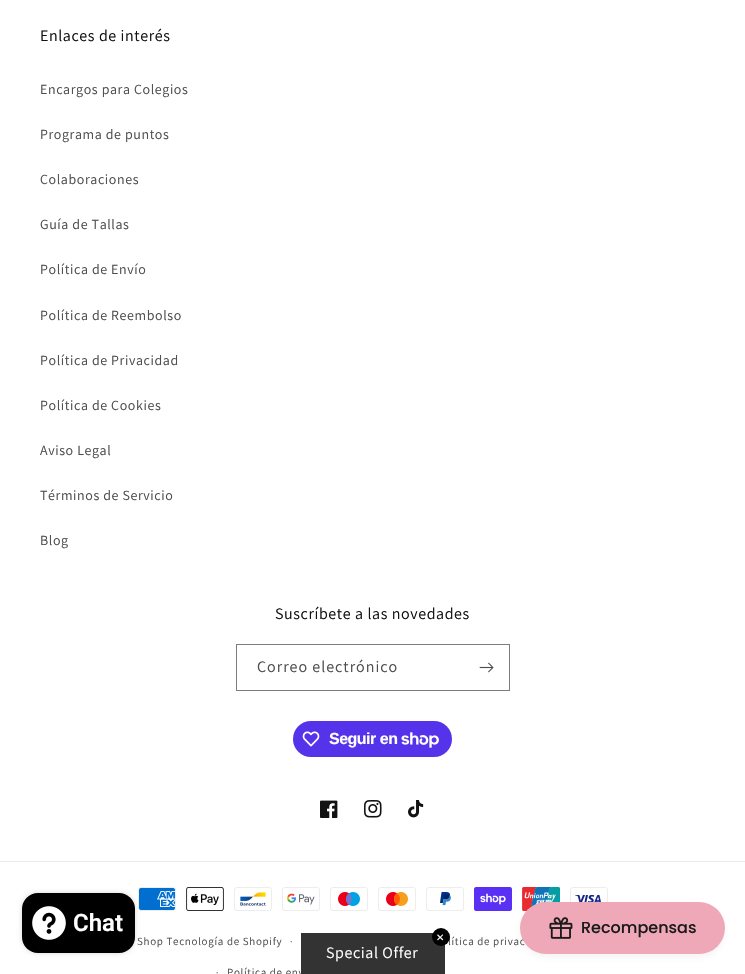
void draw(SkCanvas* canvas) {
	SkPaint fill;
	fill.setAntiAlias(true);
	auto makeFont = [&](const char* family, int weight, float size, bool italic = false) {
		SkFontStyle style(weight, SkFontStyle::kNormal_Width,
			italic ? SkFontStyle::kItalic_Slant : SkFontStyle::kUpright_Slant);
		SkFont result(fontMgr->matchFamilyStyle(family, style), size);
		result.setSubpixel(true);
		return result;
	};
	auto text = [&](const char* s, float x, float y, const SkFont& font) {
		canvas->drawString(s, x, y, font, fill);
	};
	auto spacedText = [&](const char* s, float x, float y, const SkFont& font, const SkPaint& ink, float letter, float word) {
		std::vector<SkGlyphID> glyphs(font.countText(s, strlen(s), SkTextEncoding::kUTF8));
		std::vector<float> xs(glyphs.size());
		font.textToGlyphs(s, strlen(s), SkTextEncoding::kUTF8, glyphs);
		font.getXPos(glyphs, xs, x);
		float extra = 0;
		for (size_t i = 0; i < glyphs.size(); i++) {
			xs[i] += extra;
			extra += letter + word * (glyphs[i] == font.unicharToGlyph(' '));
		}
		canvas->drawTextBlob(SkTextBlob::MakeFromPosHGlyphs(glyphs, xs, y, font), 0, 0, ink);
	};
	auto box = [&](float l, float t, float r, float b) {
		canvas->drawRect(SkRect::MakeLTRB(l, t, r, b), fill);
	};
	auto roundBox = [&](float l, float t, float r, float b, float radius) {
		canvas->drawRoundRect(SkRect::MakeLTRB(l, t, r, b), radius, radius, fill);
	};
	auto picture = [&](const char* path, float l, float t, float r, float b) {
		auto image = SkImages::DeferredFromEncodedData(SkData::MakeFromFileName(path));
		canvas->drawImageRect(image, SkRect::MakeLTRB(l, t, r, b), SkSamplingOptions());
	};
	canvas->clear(0xFFFFFFFF);
	fill.setStyle(SkPaint::kStroke_Style);
	fill.setStrokeWidth(1);
	fill.setColor(0xFF7D7D7D);
	canvas->drawRect(SkRect::MakeLTRB(236.5f, 644.5f, 509.5f, 690.5f), fill);
	picture("image0.png", 479, 662, 494, 673);
	fill.setStyle(SkPaint::kFill_Style);
	fill.setColor(0xFF5433EB);
	roundBox(293, 721, 452, 757, 18);
	picture("image1.png", 302, 731, 320, 747);
	picture("image2.png", 401, 732, 439, 748);
	picture("image3.png", 320, 800, 338, 818);
	picture("image4.png", 364, 800, 382, 818);
	picture("image5.png", 408, 800, 424, 818);
	fill.setColor(0xFFECECEC);
	box(0, 861, 745, 862);
	picture("image6.png", 138, 887, 176, 911);
	picture("image7.png", 186, 887, 224, 911);
	picture("image8.png", 234, 887, 272, 911);
	picture("image9.png", 282, 887, 320, 911);
	picture("image10.png", 330, 887, 368, 911);
	picture("image11.png", 378, 887, 416, 911);
	picture("image12.png", 426, 887, 464, 911);
	picture("image13.png", 474, 887, 512, 911);
	picture("image14.png", 522, 887, 560, 911);
	picture("image15.png", 570, 887, 608, 902);
	fill.setColor(0x26000000);
	fill.setMaskFilter(SkMaskFilter::MakeBlur(kNormal_SkBlurStyle, 2.5f));
	canvas->drawRoundRect(SkRect::MakeLTRB(22, 893, 135, 953), 16, 16, fill);
	fill.setMaskFilter(nullptr);
	fill.setColor(0xFF000000);
	roundBox(22, 893, 135, 953, 16);
	picture("image16.png", 32, 906, 66, 940);
	fill.setColor(0x14444444);
	fill.setMaskFilter(SkMaskFilter::MakeBlur(kNormal_SkBlurStyle, 4));
	canvas->drawRoundRect(SkRect::MakeLTRB(522, 908, 723, 956), 24, 24, fill);
	fill.setMaskFilter(nullptr);
	auto font1 = makeFont("Assistant", 400, 16);
	fill.setColor(0xFF121212);
	spacedText("Enlaces de interés", 40, 41, font1, fill, 0.6f, 0);
	auto font2 = makeFont("Assistant", 400, 14);
	fill.setColor(0xFF4D4D4D);
	spacedText("Encargos para Colegios", 40, 94, font2, fill, 0.6f, 0);
	spacedText("Programa de puntos", 40, 139, font2, fill, 0.6f, 0);
	spacedText("Colaboraciones", 40, 184, font2, fill, 0.6f, 0);
	spacedText("Guía de Tallas", 40, 229, font2, fill, 0.6f, 0);
	spacedText("Política de Envío", 40, 274, font2, fill, 0.6f, 0);
	spacedText("Política de Reembolso", 40, 320, font2, fill, 0.6f, 0);
	spacedText("Política de Privacidad", 40, 365, font2, fill, 0.6f, 0);
	spacedText("Política de Cookies", 40, 410, font2, fill, 0.6f, 0);
	spacedText("Aviso Legal", 40, 455, font2, fill, 0.6f, 0);
	spacedText("Términos de Servicio", 40, 500, font2, fill, 0.6f, 0);
	spacedText("Blog", 40, 545, font2, fill, 0.6f, 0);
	fill.setColor(0xFF121212);
	spacedText("Suscríbete a las novedades", 275, 619, font1, fill, 0.6f, 0);
	fill.setColor(0xFF4D4D4D);
	spacedText("Correo electrónico", 257, 672, font1, fill, 1, 0);
	auto font3 = makeFont("Liberation Sans", 700, 16);
	fill.setColor(0xFFFFFFFF);
	spacedText("Seguir en", 329, 744, font3, fill, -0.5f, 0);
	auto font4 = makeFont("Assistant", 400, 11);
	fill.setColor(0xFF4D4D4D);
	spacedText("Shop Tecnología de Shopify", 137, 945, font4, fill, 0.7f, 0);
	auto font5 = makeFont("Assistant", 400, 10);
	spacedText("·", 290, 945, font5, fill, 0.7f, 0);
	spacedText("lítica de privac", 448, 945, font4, fill, 0.7f, 0);
	spacedText("·", 216, 976, font5, fill, 0.7f, 0);
	spacedText("Política de env", 227, 976, font4, fill, 0.7f, 0);
	auto font6 = makeFont("Roboto", 600, 24);
	fill.setColor(0xFFFFFFFF);
	text("Chat", 73, 931, font6);
	fill.setColor(0xFFEFA8B8);
	roundBox(520, 902, 725, 954, 26);
	picture("image17.png", 549, 917, 573, 939);
	auto font7 = makeFont("Poppins", 500, 16);
	fill.setColor(0xFF1A1A1A);
	text("Recompensas", 581, 933, font7);
	fill.setColor(0xFF333333);
	box(301, 933, 445, 974);
	fill.setColor(0xFF000000);
	canvas->drawCircle(441, 937, 9, fill);
	auto font8 = makeFont("DejaVu Sans", 400, 10);
	fill.setColor(0xFFFFFFFF);
	text("✕", 436, 941, font8);
	spacedText("Special Offer", 326, 958, font1, fill, 0.6f, 0);
}
